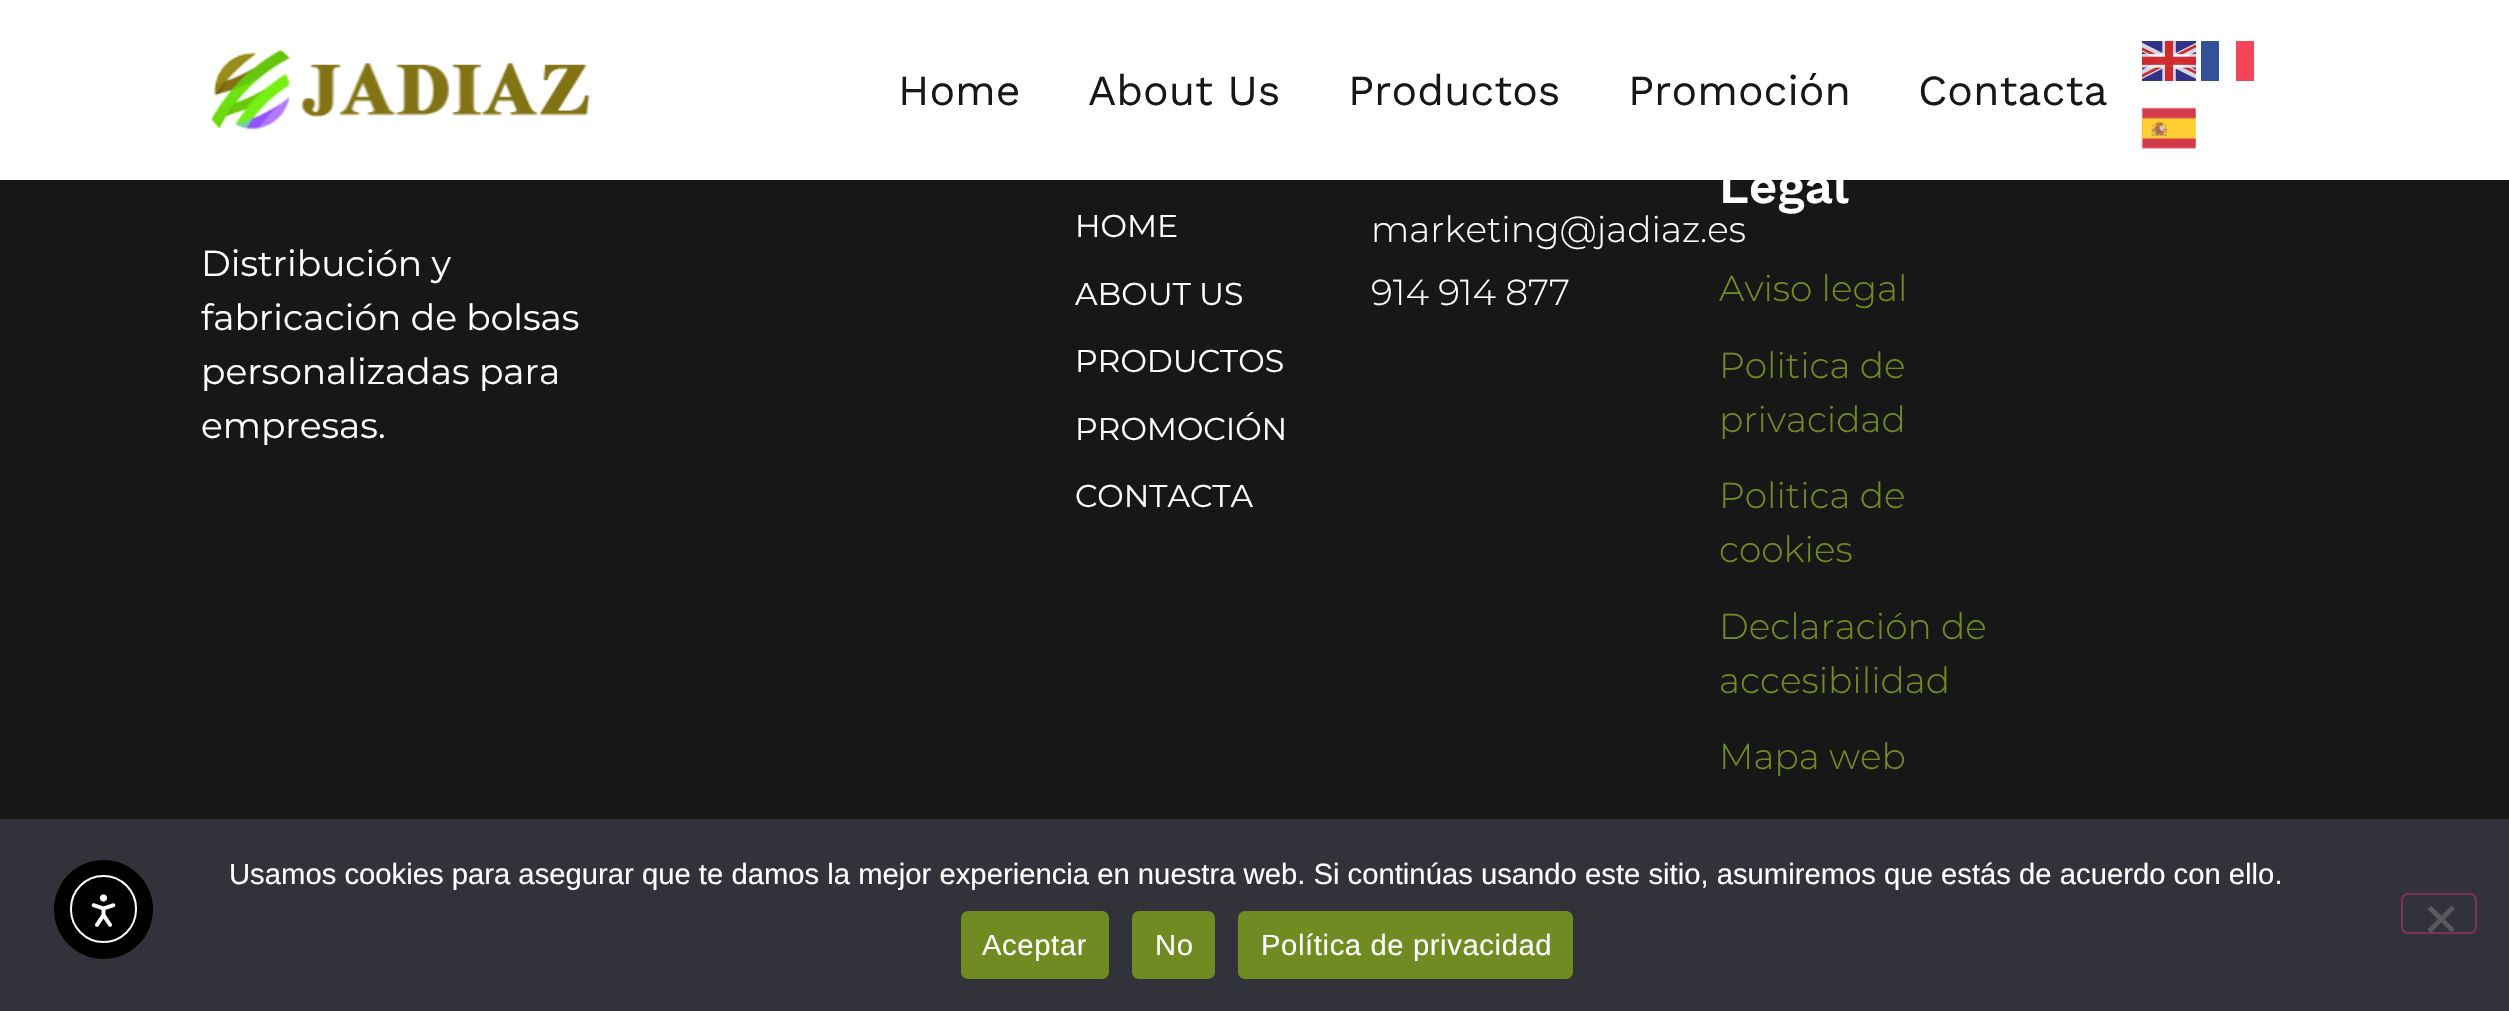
void draw(SkCanvas* canvas) {
	SkPaint fill;
	fill.setAntiAlias(true);
	auto makeFont = [&](const char* family, int weight, float size, bool italic = false) {
		SkFontStyle style(weight, SkFontStyle::kNormal_Width,
			italic ? SkFontStyle::kItalic_Slant : SkFontStyle::kUpright_Slant);
		SkFont result(fontMgr->matchFamilyStyle(family, style), size);
		result.setSubpixel(true);
		return result;
	};
	auto text = [&](const char* s, float x, float y, const SkFont& font) {
		canvas->drawString(s, x, y, font, fill);
	};
	auto spacedText = [&](const char* s, float x, float y, const SkFont& font, const SkPaint& ink, float letter, float word) {
		std::vector<SkGlyphID> glyphs(font.countText(s, strlen(s), SkTextEncoding::kUTF8));
		std::vector<float> xs(glyphs.size());
		font.textToGlyphs(s, strlen(s), SkTextEncoding::kUTF8, glyphs);
		font.getXPos(glyphs, xs, x);
		float extra = 0;
		for (size_t i = 0; i < glyphs.size(); i++) {
			xs[i] += extra;
			extra += letter + word * (glyphs[i] == font.unicharToGlyph(' '));
		}
		canvas->drawTextBlob(SkTextBlob::MakeFromPosHGlyphs(glyphs, xs, y, font), 0, 0, ink);
	};
	auto box = [&](float l, float t, float r, float b) {
		canvas->drawRect(SkRect::MakeLTRB(l, t, r, b), fill);
	};
	auto roundBox = [&](float l, float t, float r, float b, float radius) {
		canvas->drawRoundRect(SkRect::MakeLTRB(l, t, r, b), radius, radius, fill);
	};
	auto picture = [&](const char* path, float l, float t, float r, float b) {
		auto image = SkImages::DeferredFromEncodedData(SkData::MakeFromFileName(path));
		canvas->drawImageRect(image, SkRect::MakeLTRB(l, t, r, b), SkSamplingOptions());
	};
	canvas->clear(0xFF171717);
	fill.setColor(0xFFFFFFFF);
	box(0, 0, 2509, 180);
	picture("image0.png", 210, 49, 590, 130);
	picture("image1.png", 2142, 41, 2196, 81);
	fill.setColor(0xFF335199);
	box(2201, 41, 2219, 81);
	fill.setColor(0xFFF54659);
	box(2236, 41, 2254, 81);
	picture("image2.png", 2141, 107, 2196, 149);
	fill.setColor(0xFF32323A);
	box(0, 819, 2509, 1011);
	fill.setColor(0xFF000000);
	canvas->drawCircle(103.5f, 909.5f, 49.5f, fill);
	fill.setStyle(SkPaint::kStroke_Style);
	fill.setStrokeWidth(2);
	fill.setColor(0xFFFFFFFF);
	canvas->drawRoundRect(SkRect::MakeLTRB(71, 876, 136, 942), 32.5f, 32.5f, fill);
	picture("image3.png", 91, 894, 116, 927);
	fill.setColor(0xFF7F3350);
	canvas->drawRoundRect(SkRect::MakeLTRB(2402, 894, 2476, 933), 6, 6, fill);
	fill.setStyle(SkPaint::kFill_Style);
	fill.setColor(0xFF59595D);
	canvas->drawPath(SkPathBuilder().moveTo(2451.5f, 905.5f).lineTo(2455, 909).lineTo(2431, 932.5f).lineTo(2427.5f, 929.5f).close().detach(), fill);
	canvas->drawPath(SkPathBuilder().moveTo(2427.5f, 909).lineTo(2431, 905.5f).lineTo(2455, 929.5f).lineTo(2451.5f, 932.5f).close().detach(), fill);
	fill.setColor(0xFF708B21);
	roundBox(961, 911, 1109, 979, 7);
	roundBox(1132, 911, 1215, 979, 7);
	roundBox(1238, 911, 1573, 979, 7);
	auto font1 = makeFont("Work Sans", 400, 42.75f);
	fill.setColor(0xFF171717);
	text("Home", 898, 105, font1);
	text("About Us", 1088, 105, font1);
	text("Productos", 1348, 105, font1);
	text("Promoción", 1628, 105, font1);
	text("Contacta", 1918, 105, font1);
	auto font2 = makeFont("Montserrat", 400, 36);
	fill.setColor(0xFFFFFFFF);
	text("Distribución y", 201, 276, font2);
	text("fabricación de bolsas", 201, 330, font2);
	text("personalizadas para", 201, 384, font2);
	text("empresas.", 201, 438, font2);
	auto font3 = makeFont("Montserrat", 400, 31.5f);
	text("HOME", 1075, 237, font3);
	text("ABOUT US", 1075, 305, font3);
	text("PRODUCTOS", 1075, 372, font3);
	text("PROMOCIÓN", 1075, 440, font3);
	text("CONTACTA", 1075, 507, font3);
	auto font4 = makeFont("Montserrat", 300, 36);
	text("marketing@jadiaz.es", 1371, 242, font4);
	text("914 914 877", 1371, 305, font4);
	auto font5 = makeFont("Work Sans", 600, 49.5f);
	text("Legal", 1719, 203, font5);
	fill.setColor(0xFF708B21);
	text("Aviso legal", 1719, 301, font4);
	text("Politica de", 1719, 378, font4);
	text("privacidad", 1719, 432, font4);
	text("Politica de", 1719, 508, font4);
	text("cookies", 1719, 562, font4);
	text("Declaración de", 1719, 639, font4);
	text("accesibilidad", 1719, 693, font4);
	text("Mapa web", 1719, 769, font4);
	auto font6 = makeFont("Liberation Sans", 400, 29.25f);
	fill.setColor(0xFFFFFFFF);
	text("Usamos cookies para asegurar que te damos la mejor experiencia en nuestra web. Si continúas usando este sitio, asumiremos que estás de acuerdo con ello.", 229, 884, font6);
	spacedText("Aceptar", 982, 955, font6, fill, 0.6f, 0);
	spacedText("No", 1155, 955, font6, fill, 0.6f, 0);
	spacedText("Política de privacidad", 1261, 955, font6, fill, 0.6f, 0);
}
